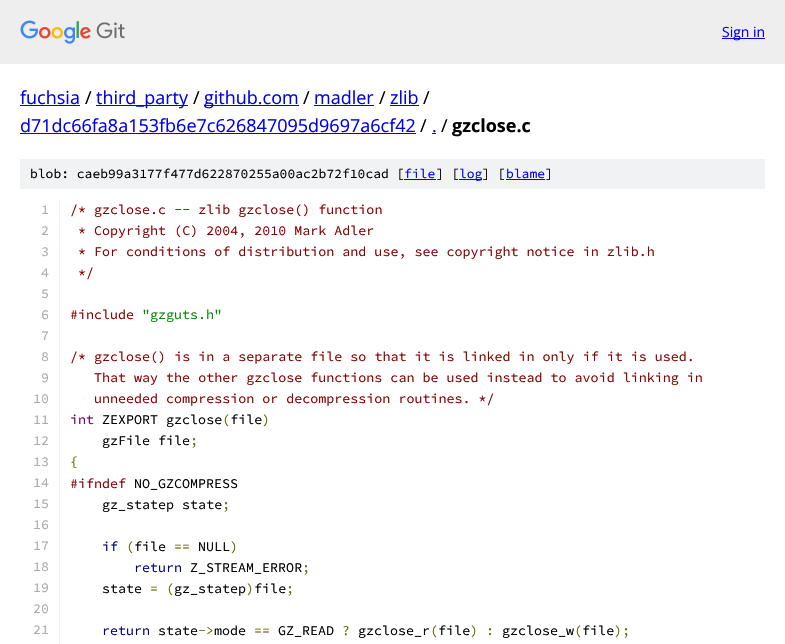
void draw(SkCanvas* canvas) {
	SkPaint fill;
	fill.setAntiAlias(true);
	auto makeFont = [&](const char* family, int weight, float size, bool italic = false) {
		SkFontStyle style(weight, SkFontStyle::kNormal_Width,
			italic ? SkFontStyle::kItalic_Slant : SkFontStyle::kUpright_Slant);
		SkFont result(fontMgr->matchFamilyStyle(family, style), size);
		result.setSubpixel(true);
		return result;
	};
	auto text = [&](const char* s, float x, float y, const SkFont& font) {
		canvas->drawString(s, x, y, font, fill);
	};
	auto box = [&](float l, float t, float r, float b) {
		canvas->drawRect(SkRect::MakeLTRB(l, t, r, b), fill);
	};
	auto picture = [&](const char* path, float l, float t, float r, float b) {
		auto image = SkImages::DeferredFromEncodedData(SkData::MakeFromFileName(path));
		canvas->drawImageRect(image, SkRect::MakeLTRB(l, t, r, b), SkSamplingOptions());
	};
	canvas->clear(0xFFFFFFFF);
	fill.setColor(0xFFEEEEEE);
	box(0, 0, 785, 64);
	picture("image0.png", 20, 20, 125, 44);
	fill.setColor(0xFF0000EE);
	box(722, 38, 765, 39);
	box(20, 105, 80, 106);
	box(96, 105, 188, 106);
	box(204, 105, 299, 106);
	box(314, 105, 374, 106);
	box(390, 105, 419, 106);
	box(20, 133, 416, 134);
	box(432, 133, 436, 134);
	fill.setColor(0xFFF1F2F3);
	box(20, 159, 765, 189);
	fill.setColor(0xFF0000EE);
	box(404, 179, 436, 180);
	box(459, 179, 482, 180);
	box(506, 179, 545, 180);
	fill.setColor(0xFFF1F2F3);
	box(59, 200, 60, 220);
	box(59, 221, 60, 241);
	box(59, 242, 60, 644);
	auto font1 = makeFont("Open Sans", 400, 14);
	fill.setColor(0xFF0000EE);
	text("Sign in", 722, 37, font1);
	auto font2 = makeFont("Open Sans", 400, 18);
	text("fuchsia", 20, 104, font2);
	fill.setColor(0xFF000000);
	text("/", 85, 104, font2);
	fill.setColor(0xFF0000EE);
	text("third_party", 96, 104, font2);
	fill.setColor(0xFF000000);
	text("/", 193, 104, font2);
	fill.setColor(0xFF0000EE);
	text("github.com", 204, 104, font2);
	fill.setColor(0xFF000000);
	text("/", 303, 104, font2);
	fill.setColor(0xFF0000EE);
	text("madler", 314, 104, font2);
	fill.setColor(0xFF000000);
	text("/", 379, 104, font2);
	fill.setColor(0xFF0000EE);
	text("zlib", 390, 104, font2);
	fill.setColor(0xFF000000);
	text("/", 423, 104, font2);
	fill.setColor(0xFF0000EE);
	text("d71dc66fa8a153fb6e7c626847095d9697a6cf42", 20, 132, font2);
	fill.setColor(0xFF000000);
	text("/", 420, 132, font2);
	fill.setColor(0xFF0000EE);
	text(".", 432, 132, font2);
	fill.setColor(0xFF000000);
	text("/", 441, 132, font2);
	auto font3 = makeFont("Open Sans", 700, 18);
	text("gzclose.c", 452, 132, font3);
	auto font4 = makeFont("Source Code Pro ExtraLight", 200, 13);
	text("blob: caeb99a3177f477d622870255a00ac2b72f10cad [", 30, 178, font4);
	fill.setColor(0xFF0000EE);
	text("file", 404, 178, font4);
	fill.setColor(0xFF000000);
	text("] [", 436, 178, font4);
	fill.setColor(0xFF0000EE);
	text("log", 459, 178, font4);
	fill.setColor(0xFF000000);
	text("] [", 482, 178, font4);
	fill.setColor(0xFF0000EE);
	text("blame", 506, 178, font4);
	fill.setColor(0xFF000000);
	text("]", 545, 178, font4);
	auto font5 = makeFont("Source Code Pro ExtraLight", 200, 13.35f);
	fill.setColor(0xFFAAAAAA);
	text("1", 41, 214, font5);
	fill.setColor(0xFF880000);
	text("/* gzclose.c -- zlib gzclose() function", 70, 214, font5);
	fill.setColor(0xFFAAAAAA);
	text("2", 41, 235, font5);
	fill.setColor(0xFF880000);
	text("* Copyright (C) 2004, 2010 Mark Adler", 78, 235, font5);
	fill.setColor(0xFFAAAAAA);
	text("3", 41, 256, font5);
	fill.setColor(0xFF880000);
	text("* For conditions of distribution and use, see copyright notice in zlib.h", 78, 256, font5);
	fill.setColor(0xFFAAAAAA);
	text("4", 41, 277, font5);
	fill.setColor(0xFF880000);
	text("*/", 78, 277, font5);
	fill.setColor(0xFFAAAAAA);
	text("5", 41, 298, font5);
	text("6", 41, 319, font5);
	fill.setColor(0xFF880000);
	text("#include", 70, 319, font5);
	fill.setColor(0xFF008800);
	text("\"gzguts.h\"", 142, 319, font5);
	fill.setColor(0xFFAAAAAA);
	text("7", 41, 340, font5);
	text("8", 41, 361, font5);
	fill.setColor(0xFF880000);
	text("/* gzclose() is in a separate file so that it is linked in only if it is used.", 70, 361, font5);
	fill.setColor(0xFFAAAAAA);
	text("9", 41, 382, font5);
	fill.setColor(0xFF880000);
	text("That way the other gzclose functions can be used instead to avoid linking in", 94, 382, font5);
	fill.setColor(0xFFAAAAAA);
	text("10", 33, 403, font5);
	fill.setColor(0xFF880000);
	text("unneeded compression or decompression routines. */", 94, 403, font5);
	fill.setColor(0xFFAAAAAA);
	text("11", 33, 424, font5);
	fill.setColor(0xFF660066);
	text("int", 70, 424, font5);
	fill.setColor(0xFF000000);
	text("ZEXPORT gzclose file", 102, 424, font5);
	fill.setColor(0xFF666600);
	text("(", 222, 424, font5);
	text(")", 262, 424, font5);
	fill.setColor(0xFFAAAAAA);
	text("12", 33, 445, font5);
	fill.setColor(0xFF000000);
	text("gzFile file", 102, 445, font5);
	fill.setColor(0xFF666600);
	text(";", 190, 445, font5);
	fill.setColor(0xFFAAAAAA);
	text("13", 33, 466, font5);
	fill.setColor(0xFF666600);
	text("{", 70, 466, font5);
	fill.setColor(0xFFAAAAAA);
	text("14", 33, 487, font5);
	fill.setColor(0xFF880000);
	text("#ifndef", 70, 488, font5);
	fill.setColor(0xFF000000);
	text("NO_GZCOMPRESS", 134, 488, font5);
	fill.setColor(0xFFAAAAAA);
	text("15", 33, 508, font5);
	fill.setColor(0xFF000000);
	text("gz_statep state", 102, 509, font5);
	fill.setColor(0xFF666600);
	text(";", 222, 509, font5);
	fill.setColor(0xFFAAAAAA);
	text("16", 33, 529, font5);
	text("17", 33, 550, font5);
	fill.setColor(0xFF000088);
	text("if", 102, 551, font5);
	fill.setColor(0xFF666600);
	text("(", 126, 551, font5);
	fill.setColor(0xFF000000);
	text("file", 134, 551, font5);
	fill.setColor(0xFF666600);
	text("==", 174, 551, font5);
	fill.setColor(0xFF000000);
	text("NULL", 198, 551, font5);
	fill.setColor(0xFF666600);
	text(")", 230, 551, font5);
	fill.setColor(0xFFAAAAAA);
	text("18", 33, 571, font5);
	fill.setColor(0xFF000088);
	text("return", 134, 572, font5);
	fill.setColor(0xFF000000);
	text("Z_STREAM_ERROR", 190, 572, font5);
	fill.setColor(0xFF666600);
	text(";", 302, 572, font5);
	fill.setColor(0xFFAAAAAA);
	text("19", 33, 592, font5);
	fill.setColor(0xFF666600);
	text("= (", 150, 593, font5);
	fill.setColor(0xFF000000);
	text("gz_statep file", 174, 593, font5);
	text("state", 102, 593, font5);
	fill.setColor(0xFF666600);
	text(")", 246, 593, font5);
	text(";", 286, 593, font5);
	fill.setColor(0xFFAAAAAA);
	text("20", 33, 613, font5);
	text("21", 33, 634, font5);
	fill.setColor(0xFF000000);
	text("mode", 214, 635, font5);
	fill.setColor(0xFF666600);
	text("?", 342, 635, font5);
	fill.setColor(0xFF000000);
	text("gzclose_r file", 358, 635, font5);
	fill.setColor(0xFF666600);
	text("(", 430, 635, font5);
	text(") :", 470, 635, font5);
	fill.setColor(0xFF000000);
	text("gzclose_w file", 502, 635, font5);
	fill.setColor(0xFF000088);
	text("return", 102, 635, font5);
	fill.setColor(0xFF000000);
	text("state", 158, 635, font5);
	fill.setColor(0xFF666600);
	text("->", 198, 635, font5);
	text("==", 254, 635, font5);
	fill.setColor(0xFF000000);
	text("GZ_READ", 278, 635, font5);
	fill.setColor(0xFF666600);
	text("(", 574, 635, font5);
	text(");", 614, 635, font5);
}
